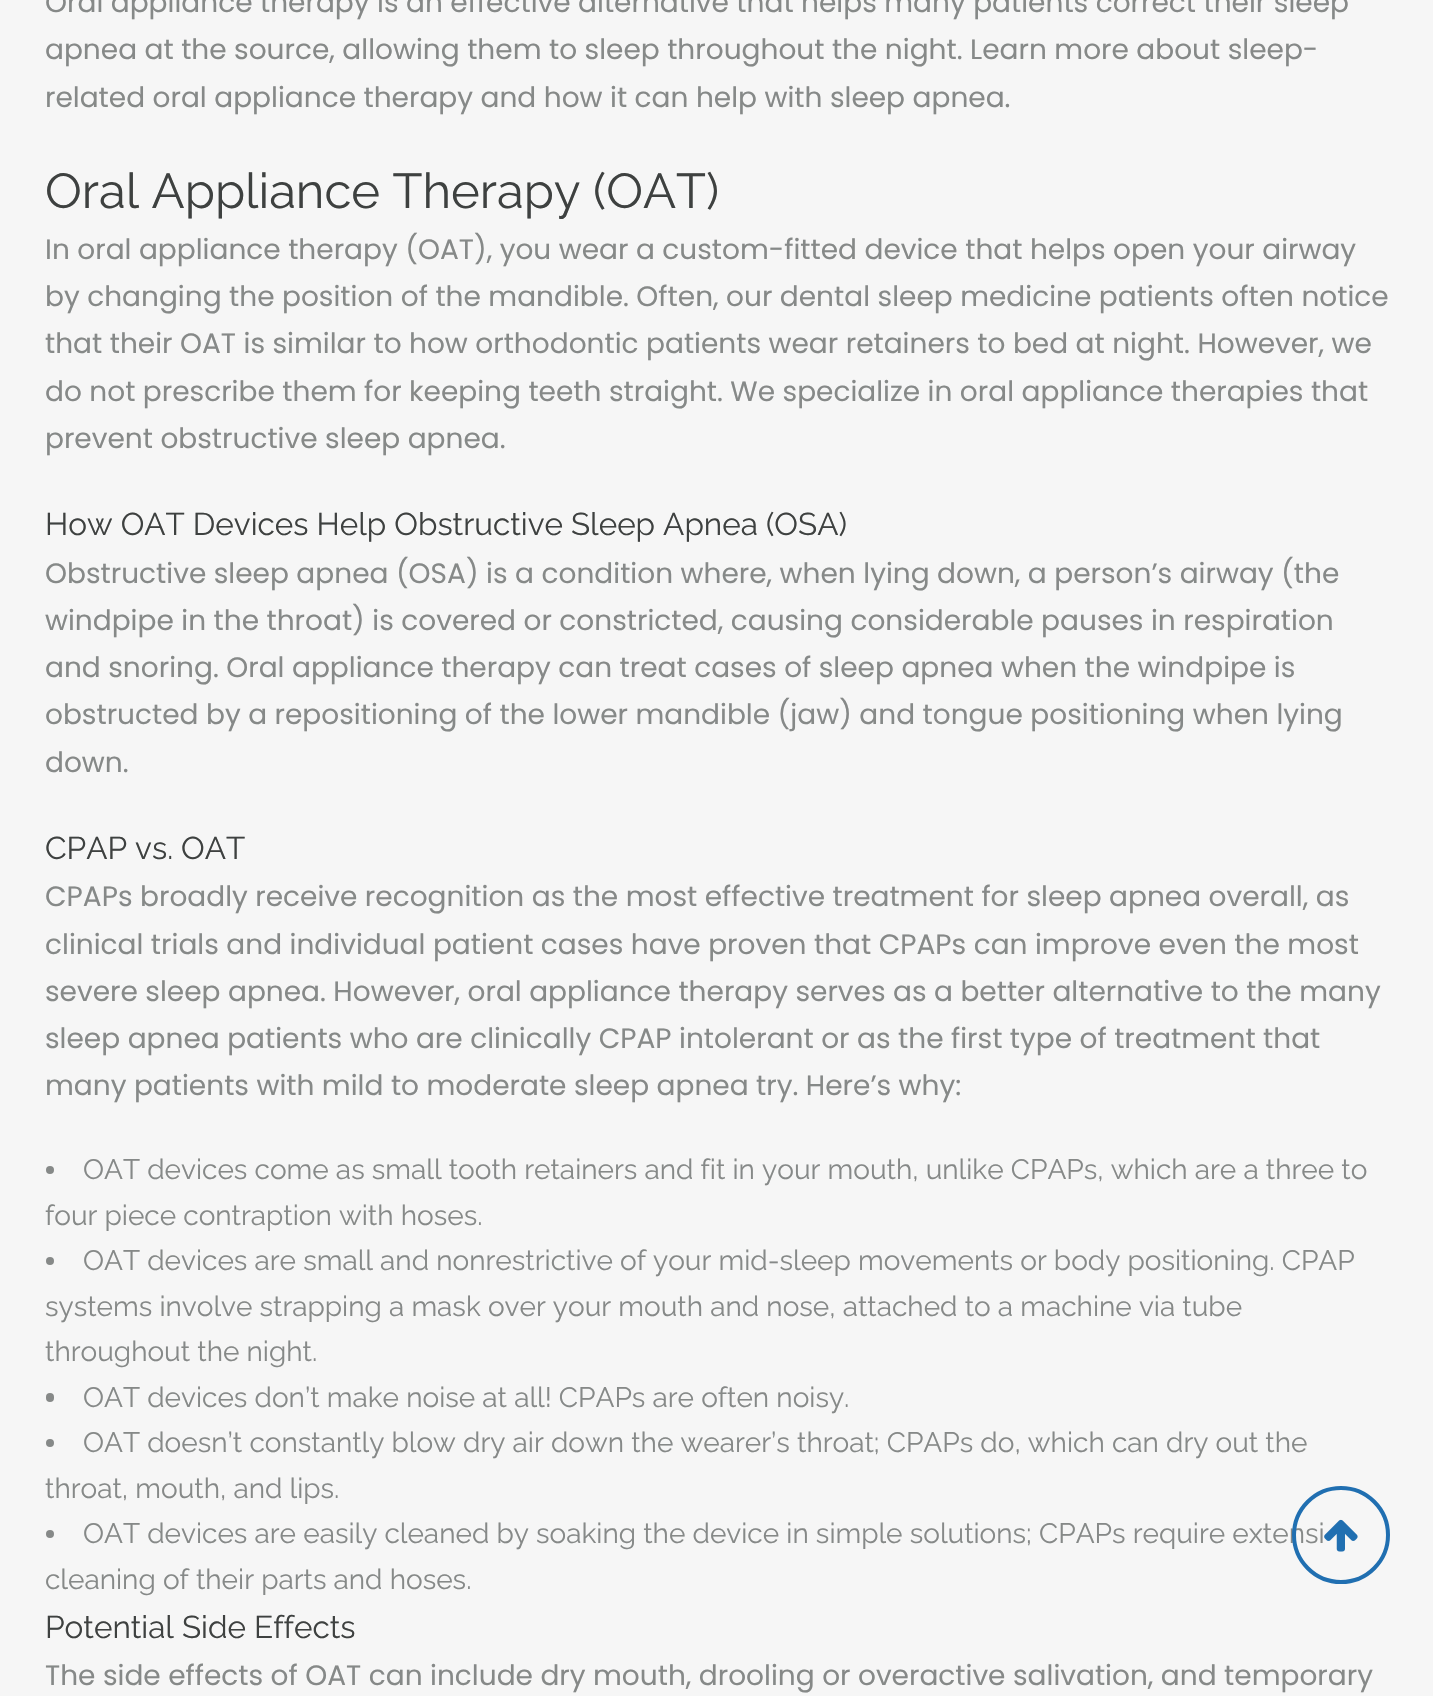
void draw(SkCanvas* canvas) {
	SkPaint fill;
	fill.setAntiAlias(true);
	auto makeFont = [&](const char* family, int weight, float size, bool italic = false) {
		SkFontStyle style(weight, SkFontStyle::kNormal_Width,
			italic ? SkFontStyle::kItalic_Slant : SkFontStyle::kUpright_Slant);
		SkFont result(fontMgr->matchFamilyStyle(family, style), size);
		result.setSubpixel(true);
		return result;
	};
	auto text = [&](const char* s, float x, float y, const SkFont& font) {
		canvas->drawString(s, x, y, font, fill);
	};
	auto roundBox = [&](float l, float t, float r, float b, float radius) {
		canvas->drawRoundRect(SkRect::MakeLTRB(l, t, r, b), radius, radius, fill);
	};
	auto picture = [&](const char* path, float l, float t, float r, float b) {
		auto image = SkImages::DeferredFromEncodedData(SkData::MakeFromFileName(path));
		canvas->drawImageRect(image, SkRect::MakeLTRB(l, t, r, b), SkSamplingOptions());
	};
	canvas->clear(0xFFF6F6F6);
	fill.setColor(0xFF868988);
	canvas->drawCircle(50, 1170, 4, fill);
	canvas->drawCircle(50, 1261, 4, fill);
	roundBox(46, 1393, 54, 1402, 4);
	canvas->drawCircle(50, 1443, 4, fill);
	canvas->drawCircle(50, 1534, 4, fill);
	auto font1 = makeFont("Poppins", 400, 28);
	text("Oral appliance therapy is an effective alternative that helps many patients correct their sleep", 45, 12, font1);
	text("apnea at the source, allowing them to sleep throughout the night. Learn more about sleep-", 45, 59, font1);
	text("related oral appliance therapy and how it can help with sleep apnea.", 45, 107, font1);
	auto font2 = makeFont("Raleway", 400, 49);
	fill.setColor(0xFF3E4140);
	text("Oral Appliance Therapy (OAT)", 45, 208, font2);
	fill.setColor(0xFF868988);
	text("In oral appliance therapy (OAT), you wear a custom-fitted device that helps open your airway", 45, 259, font1);
	text("by changing the position of the mandible. Often, our dental sleep medicine patients often notice", 45, 306, font1);
	text("that their OAT is similar to how orthodontic patients wear retainers to bed at night. However, we", 45, 353, font1);
	text("do not prescribe them for keeping teeth straight. We specialize in oral appliance therapies that", 45, 401, font1);
	text("prevent obstructive sleep apnea.", 45, 448, font1);
	auto font3 = makeFont("Raleway", 400, 31.5f);
	fill.setColor(0xFF3E4140);
	text("How OAT Devices Help Obstructive Sleep Apnea (OSA)", 45, 535, font3);
	fill.setColor(0xFF868988);
	text("Obstructive sleep apnea (OSA) is a condition where, when lying down, a person’s airway (the", 45, 583, font1);
	text("windpipe in the throat) is covered or constricted, causing considerable pauses in respiration", 45, 630, font1);
	text("and snoring. Oral appliance therapy can treat cases of sleep apnea when the windpipe is", 45, 677, font1);
	text("obstructed by a repositioning of the lower mandible (jaw) and tongue positioning when lying", 45, 724, font1);
	text("down.", 45, 772, font1);
	fill.setColor(0xFF3E4140);
	text("CPAP vs. OAT", 45, 859, font3);
	fill.setColor(0xFF868988);
	text("CPAPs broadly receive recognition as the most effective treatment for sleep apnea overall, as", 45, 906, font1);
	text("clinical trials and individual patient cases have proven that CPAPs can improve even the most", 45, 954, font1);
	text("severe sleep apnea. However, oral appliance therapy serves as a better alternative to the many", 45, 1001, font1);
	text("sleep apnea patients who are clinically CPAP intolerant or as the first type of treatment that", 45, 1048, font1);
	text("many patients with mild to moderate sleep apnea try. Here’s why:", 45, 1095, font1);
	auto font4 = makeFont("Raleway", 400, 28);
	text("OAT devices come as small tooth retainers and fit in your mouth, unlike CPAPs, which are a three to", 83, 1179, font4);
	text("four piece contraption with hoses.", 45, 1225, font4);
	text("OAT devices are small and nonrestrictive of your mid-sleep movements or body positioning. CPAP", 83, 1270, font4);
	text("systems involve strapping a mask over your mouth and nose, attached to a machine via tube", 45, 1316, font4);
	text("throughout the night.", 45, 1361, font4);
	text("OAT devices don’t make noise at all! CPAPs are often noisy.", 83, 1407, font4);
	text("OAT doesn’t constantly blow dry air down the wearer’s throat; CPAPs do, which can dry out the", 83, 1452, font4);
	text("throat, mouth, and lips.", 45, 1498, font4);
	text("OAT devices are easily cleaned by soaking the device in simple solutions; CPAPs require extensi", 83, 1543, font4);
	text("cleaning of their parts and hoses.", 45, 1589, font4);
	fill.setColor(0xFF3E4140);
	text("Potential Side Effects", 45, 1638, font3);
	fill.setColor(0xFF868988);
	text("The side effects of OAT can include dry mouth, drooling or overactive salivation, and temporary", 45, 1685, font1);
	fill.setStyle(SkPaint::kStroke_Style);
	fill.setStrokeWidth(4);
	fill.setColor(0xFF206FB1);
	canvas->drawCircle(1341, 1535, 47, fill);
	picture("image0.png", 1324, 1519, 1358, 1552);
}
